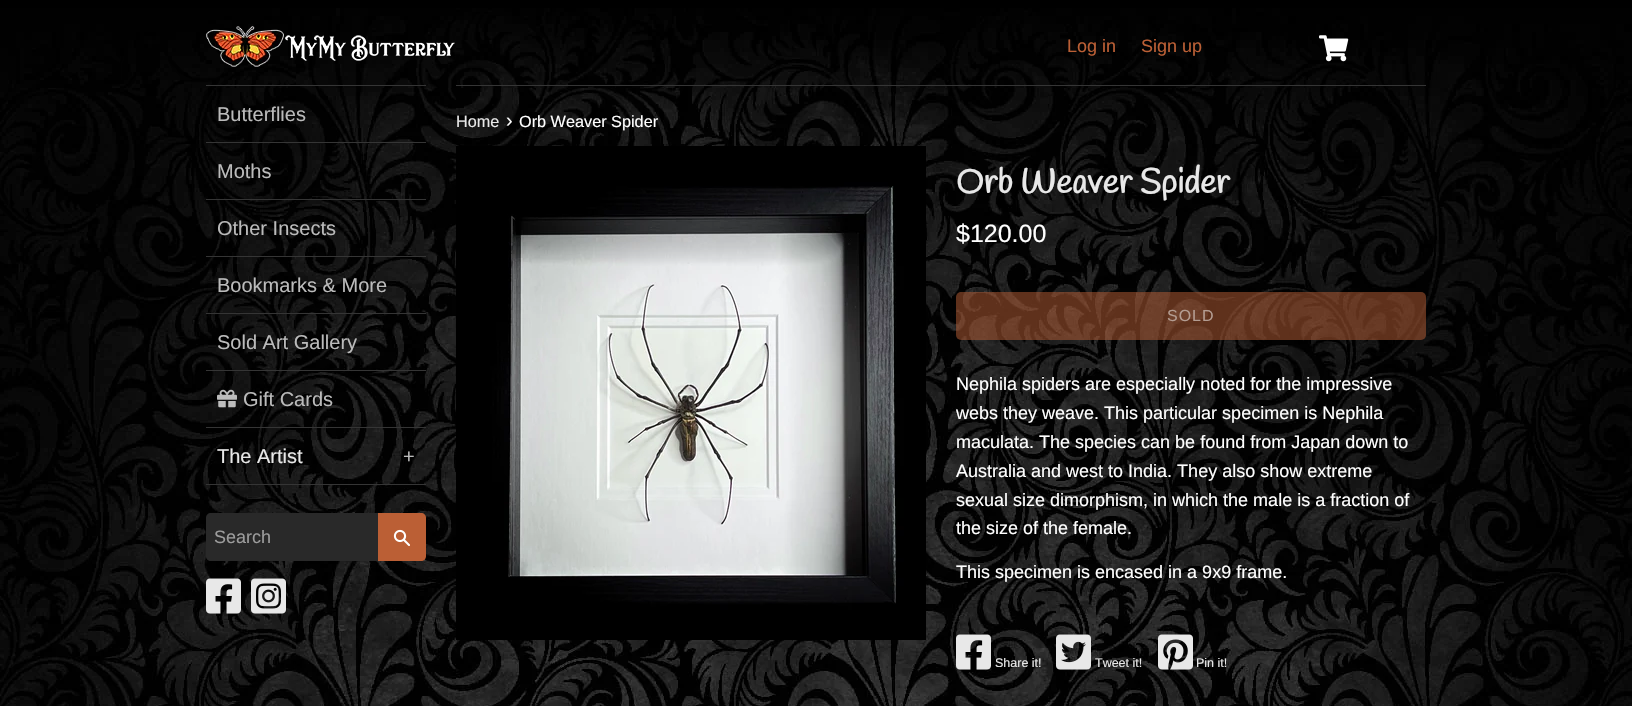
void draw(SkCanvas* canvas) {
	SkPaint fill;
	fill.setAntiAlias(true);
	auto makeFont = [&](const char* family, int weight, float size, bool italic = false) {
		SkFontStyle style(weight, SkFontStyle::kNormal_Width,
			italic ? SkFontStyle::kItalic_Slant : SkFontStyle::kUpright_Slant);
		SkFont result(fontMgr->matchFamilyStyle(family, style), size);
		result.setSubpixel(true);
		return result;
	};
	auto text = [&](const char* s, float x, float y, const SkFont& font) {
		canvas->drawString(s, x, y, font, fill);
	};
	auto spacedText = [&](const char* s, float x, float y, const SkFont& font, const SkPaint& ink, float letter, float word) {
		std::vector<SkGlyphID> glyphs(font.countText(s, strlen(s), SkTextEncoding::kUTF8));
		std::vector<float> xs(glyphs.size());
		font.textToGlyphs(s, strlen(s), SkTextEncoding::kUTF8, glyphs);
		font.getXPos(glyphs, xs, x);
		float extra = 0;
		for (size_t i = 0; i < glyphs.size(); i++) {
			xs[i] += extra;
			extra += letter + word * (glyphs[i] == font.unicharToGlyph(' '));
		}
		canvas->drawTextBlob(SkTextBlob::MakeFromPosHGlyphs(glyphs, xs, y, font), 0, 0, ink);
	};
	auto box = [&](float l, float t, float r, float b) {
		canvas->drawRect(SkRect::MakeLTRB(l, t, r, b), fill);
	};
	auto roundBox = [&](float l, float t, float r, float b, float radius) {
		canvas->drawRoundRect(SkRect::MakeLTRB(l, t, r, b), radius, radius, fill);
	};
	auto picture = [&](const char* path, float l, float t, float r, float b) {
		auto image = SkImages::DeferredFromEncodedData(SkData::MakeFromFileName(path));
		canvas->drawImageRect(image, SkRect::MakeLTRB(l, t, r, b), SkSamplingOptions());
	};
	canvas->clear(0xFF000000);
	picture("image0.png", 0, 8, 1632, 706);
	picture("image1.png", 206, 26, 455, 67);
	picture("image2.png", 1319, 35, 1349, 62);
	fill.setColor(0xFF353535);
	box(206, 85, 426, 86);
	box(206, 142, 426, 143);
	box(206, 199, 426, 200);
	box(206, 256, 426, 257);
	box(206, 313, 426, 314);
	box(206, 370, 426, 371);
	box(206, 427, 426, 428);
	picture("image3.png", 217, 389, 237, 408);
	box(206, 484, 426, 485);
	fill.setColor(0xFF292929);
	canvas->drawPath(SkPathBuilder().moveTo(211, 513).lineTo(394, 513).lineTo(394, 561).lineTo(211, 561).cubicTo(208, 561, 206, 559, 206, 556).lineTo(206, 518).cubicTo(206, 515, 208, 513, 211, 513).close().detach(), fill);
	fill.setColor(0xFFBB5F35);
	canvas->drawPath(SkPathBuilder().moveTo(378, 513).lineTo(421, 513).cubicTo(424, 513, 426, 515, 426, 518).lineTo(426, 556).cubicTo(426, 559, 424, 561, 421, 561).lineTo(378, 561).close().detach(), fill);
	picture("image4.png", 393, 529, 410, 546);
	picture("image5.png", 206, 578, 241, 614);
	picture("image6.png", 251, 578, 286, 614);
	fill.setColor(0xFF353535);
	box(456, 85, 1426, 86);
	picture("image7.png", 456, 146, 926, 640);
	fill.setColor(0x80BB5F35);
	roundBox(956, 292, 1426, 340, 5);
	picture("image8.png", 956, 634, 991, 670);
	picture("image9.png", 1056, 634, 1091, 670);
	picture("image10.png", 1158, 634, 1193, 670);
	auto font1 = makeFont("Liberation Sans", 400, 18);
	fill.setColor(0xFFBB5F35);
	text("Log in", 1067, 52, font1);
	text("Sign up", 1141, 52, font1);
	auto font2 = makeFont("Liberation Sans", 400, 20);
	fill.setColor(0xFFBBBBBB);
	text("Butterflies", 217, 121, font2);
	text("Moths", 217, 178, font2);
	text("Other Insects", 217, 235, font2);
	text("Bookmarks & More", 217, 292, font2);
	text("Sold Art Gallery", 217, 349, font2);
	text("Gift Cards", 243, 406, font2);
	fill.setColor(0xFFE8E8E8);
	text("The Artist", 217, 463, font2);
	fill.setColor(0xFFBBBBBB);
	text("+", 403, 463, font2);
	fill.setColor(0xFF9C9C9C);
	text("Search", 214, 543, font1);
	auto font3 = makeFont("Liberation Sans", 400, 16.25f);
	fill.setColor(0xFFE8E8E8);
	text("Home", 456, 127, font3);
	fill.setColor(0xFFFFFFFF);
	text("›", 506, 127, font2);
	text("Orb Weaver Spider", 519, 127, font3);
	auto font4 = makeFont("Handlee", 700, 34);
	fill.setColor(0xFFE8E8E8);
	text("Orb Weaver Spider", 956, 193, font4);
	auto font5 = makeFont("Liberation Sans", 400, 25);
	fill.setColor(0xFFFFFFFF);
	text("$120.00", 956, 242, font5);
	auto font6 = makeFont("Liberation Sans", 400, 16);
	fill.setColor(0xFFB49D92);
	spacedText("SOLD", 1167, 321, font6, fill, 1, 0);
	fill.setColor(0xFFFFFFFF);
	text("Nephila spiders are especially noted for the impressive", 956, 390, font1);
	text("webs they weave. This particular specimen is Nephila", 956, 419, font1);
	text("maculata. The species can be found from Japan down to", 956, 448, font1);
	text("Australia and west to India. They also show extreme", 956, 477, font1);
	text("sexual size dimorphism, in which the male is a fraction of", 956, 506, font1);
	text("the size of the female.", 956, 534, font1);
	text("This specimen is encased in a 9x9 frame.", 956, 578, font1);
	auto font7 = makeFont("Liberation Sans", 400, 12.5f);
	fill.setColor(0xFFE8E8E8);
	text("Share it!", 995, 667, font7);
	text("Tweet it!", 1095, 667, font7);
	text("Pin it!", 1196, 667, font7);
}
